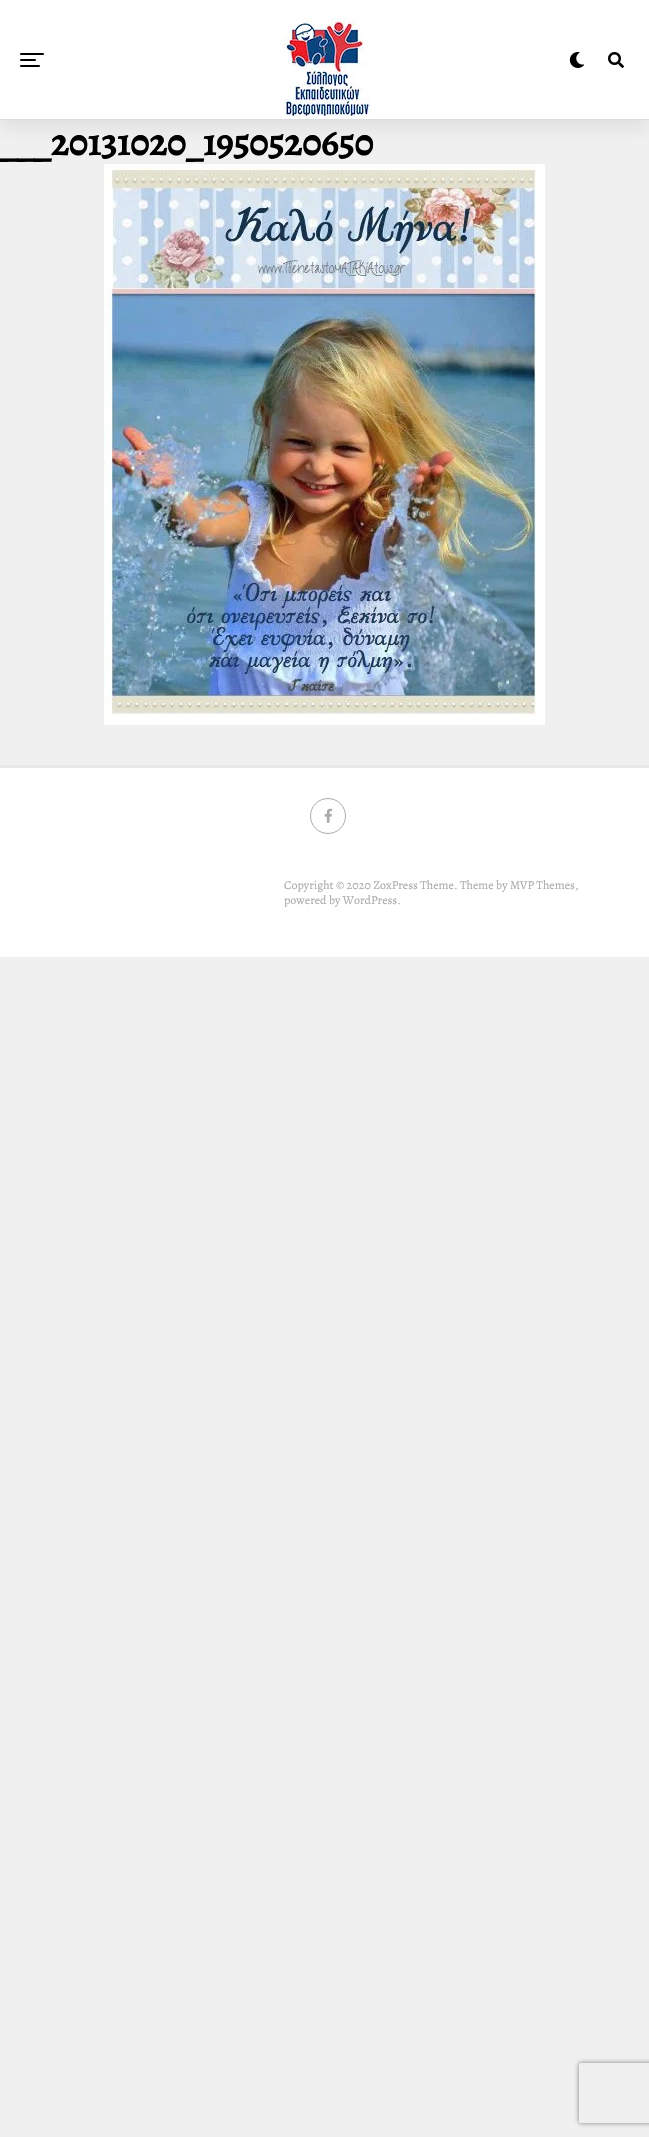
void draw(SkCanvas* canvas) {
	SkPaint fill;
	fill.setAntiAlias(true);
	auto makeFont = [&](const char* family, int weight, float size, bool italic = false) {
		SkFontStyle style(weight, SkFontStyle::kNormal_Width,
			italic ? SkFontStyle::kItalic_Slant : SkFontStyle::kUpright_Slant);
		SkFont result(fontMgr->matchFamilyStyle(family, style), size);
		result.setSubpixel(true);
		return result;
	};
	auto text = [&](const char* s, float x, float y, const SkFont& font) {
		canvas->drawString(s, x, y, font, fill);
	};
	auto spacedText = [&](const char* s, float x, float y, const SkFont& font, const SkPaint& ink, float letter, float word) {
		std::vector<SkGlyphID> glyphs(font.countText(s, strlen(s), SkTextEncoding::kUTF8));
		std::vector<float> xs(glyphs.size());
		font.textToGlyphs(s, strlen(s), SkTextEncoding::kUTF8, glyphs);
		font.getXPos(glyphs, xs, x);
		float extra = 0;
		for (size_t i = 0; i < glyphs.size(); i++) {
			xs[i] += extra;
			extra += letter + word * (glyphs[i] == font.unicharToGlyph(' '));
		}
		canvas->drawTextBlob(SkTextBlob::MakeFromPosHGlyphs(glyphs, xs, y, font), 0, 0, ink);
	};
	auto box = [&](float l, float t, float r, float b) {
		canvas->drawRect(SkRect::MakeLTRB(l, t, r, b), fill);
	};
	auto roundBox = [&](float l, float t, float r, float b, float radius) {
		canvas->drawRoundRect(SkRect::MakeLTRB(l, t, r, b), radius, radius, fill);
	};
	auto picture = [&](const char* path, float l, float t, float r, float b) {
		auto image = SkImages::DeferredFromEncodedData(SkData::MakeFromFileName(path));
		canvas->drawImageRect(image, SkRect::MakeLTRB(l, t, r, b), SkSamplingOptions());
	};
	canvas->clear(0xFFF0F0F0);
	fill.setColor(0x1415151E);
	fill.setMaskFilter(SkMaskFilter::MakeBlur(kNormal_SkBlurStyle, 8));
	canvas->drawRect(SkRect::MakeLTRB(0, 8, 649, 128), fill);
	fill.setMaskFilter(nullptr);
	fill.setColor(0xFFFFFFFF);
	box(0, 0, 649, 119);
	fill.setColor(0xFFDDDDDD);
	box(0, 119, 649, 120);
	fill.setColor(0xFF000000);
	roundBox(20, 53, 44, 55, 1);
	roundBox(20, 59, 36, 61, 1);
	roundBox(20, 65, 40, 67, 1);
	picture("image0.png", 283, 18, 371, 118);
	picture("image1.png", 569, 52, 585, 68);
	picture("image2.png", 608, 52, 624, 68);
	picture("image3.png", 104, 164, 545, 725);
	fill.setColor(0xFFFFFFFF);
	box(0, 768, 649, 957);
	fill.setColor(0xFFE9E9E9);
	box(0, 765, 649, 768);
	fill.setStyle(SkPaint::kStroke_Style);
	fill.setStrokeWidth(1);
	fill.setColor(0xFFAAAAAA);
	canvas->drawCircle(328, 816, 17.5f, fill);
	picture("image4.png", 324, 808, 333, 823);
	canvas->save();
	canvas->clipPath(SkPathBuilder(SkPathFillType::kEvenOdd).moveTo(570, 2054).lineTo(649, 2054).lineTo(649, 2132).lineTo(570, 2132).close().moveTo(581, 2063).lineTo(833, 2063).cubicTo(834, 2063, 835, 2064, 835, 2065).lineTo(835, 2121).cubicTo(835, 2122, 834, 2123, 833, 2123).lineTo(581, 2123).cubicTo(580, 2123, 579, 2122, 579, 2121).lineTo(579, 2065).cubicTo(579, 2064, 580, 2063, 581, 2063).close().detach(), true);
	fill.setStyle(SkPaint::kFill_Style);
	fill.setColor(0xFF808080);
	fill.setMaskFilter(SkMaskFilter::MakeBlur(kNormal_SkBlurStyle, 2.5f));
	canvas->drawRoundRect(SkRect::MakeLTRB(579, 2063, 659, 2123), 2, 2, fill);
	fill.setMaskFilter(nullptr);
	canvas->restore();
	auto font1 = makeFont("Alegreya", 700, 39);
	fill.setColor(0xFF000000);
	spacedText("___20131020_1950520650", 0, 155, font1, fill, -0.75f, 0);
	auto font2 = makeFont("Alegreya", 400, 12);
	fill.setColor(0xFFAAAAAA);
	text("Copyright © 2020 ZoxPress Theme. Theme by MVP Themes,", 284, 889, font2);
	text("powered by WordPress.", 284, 904, font2);
}
